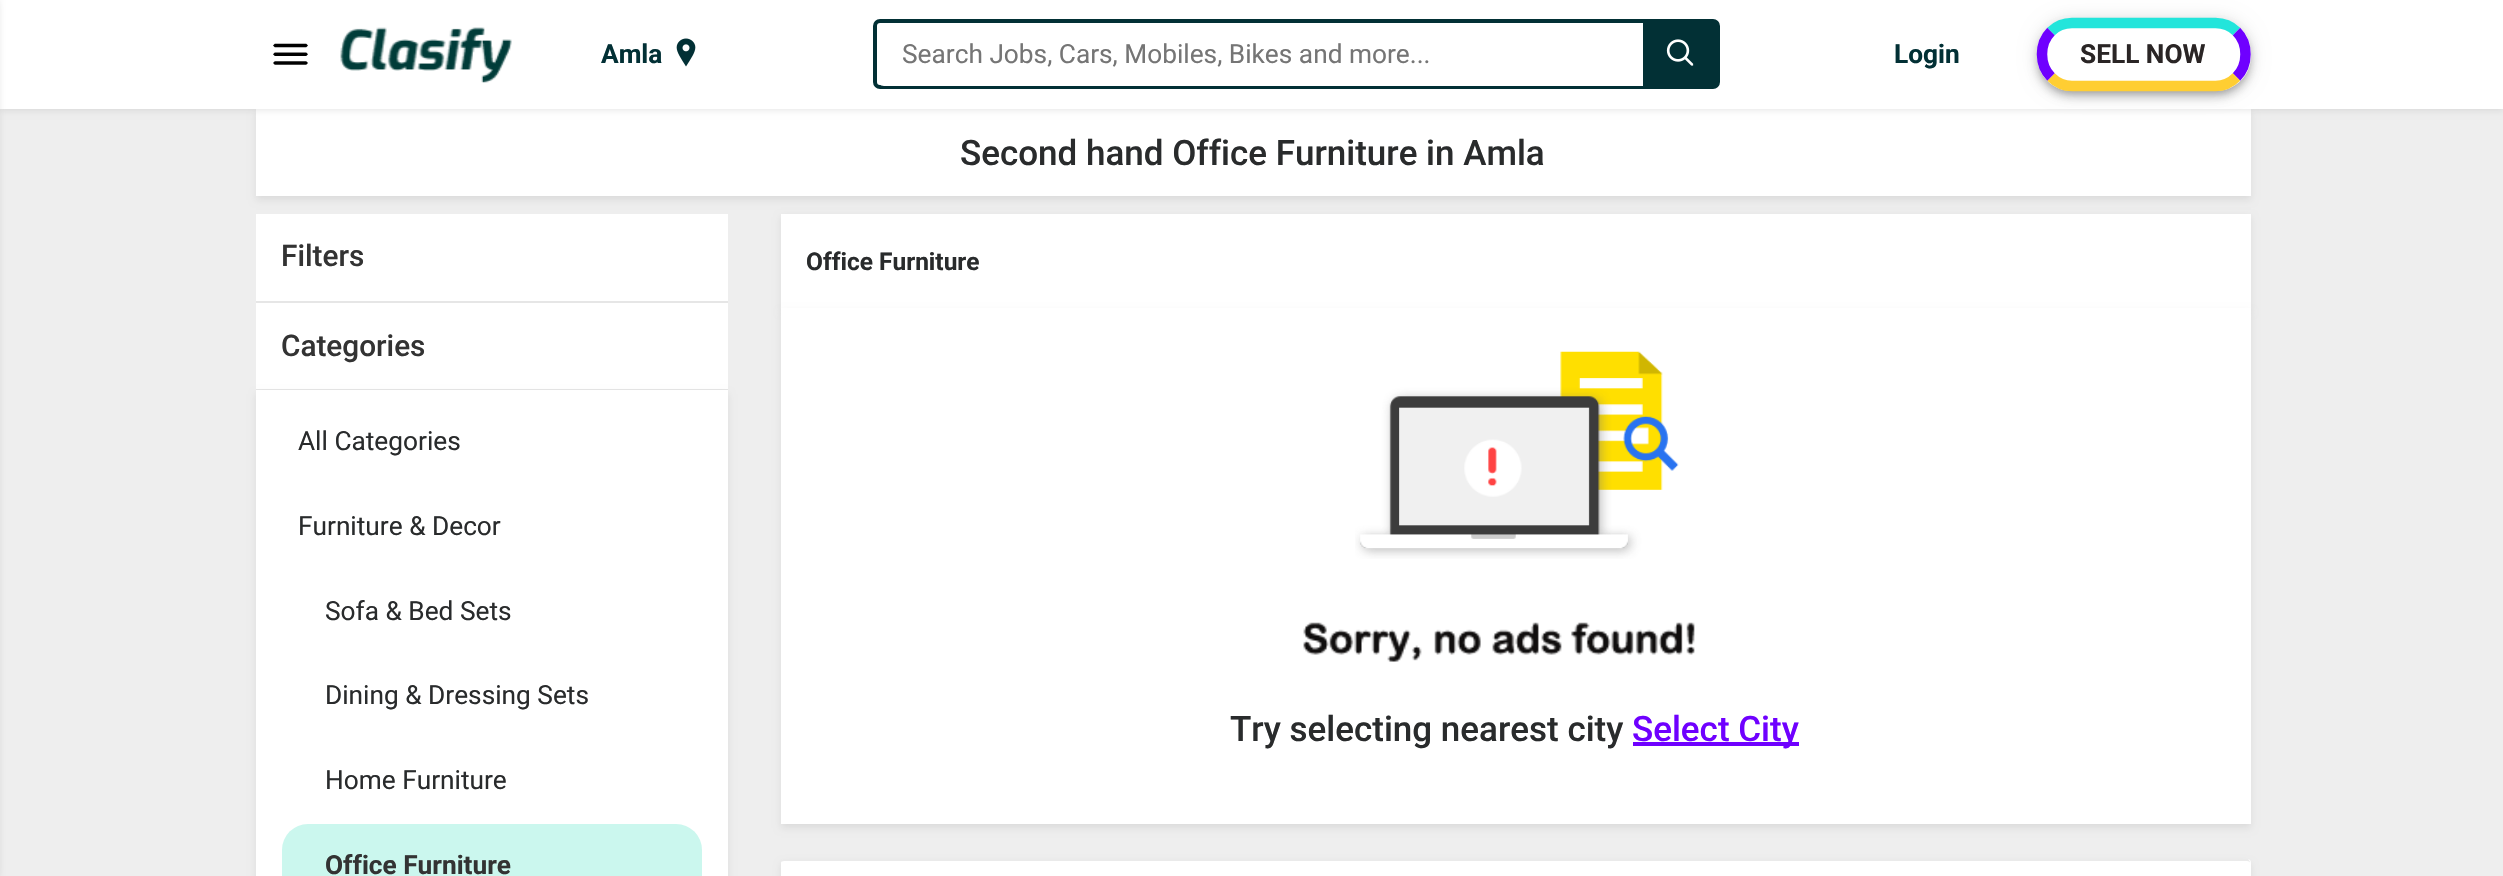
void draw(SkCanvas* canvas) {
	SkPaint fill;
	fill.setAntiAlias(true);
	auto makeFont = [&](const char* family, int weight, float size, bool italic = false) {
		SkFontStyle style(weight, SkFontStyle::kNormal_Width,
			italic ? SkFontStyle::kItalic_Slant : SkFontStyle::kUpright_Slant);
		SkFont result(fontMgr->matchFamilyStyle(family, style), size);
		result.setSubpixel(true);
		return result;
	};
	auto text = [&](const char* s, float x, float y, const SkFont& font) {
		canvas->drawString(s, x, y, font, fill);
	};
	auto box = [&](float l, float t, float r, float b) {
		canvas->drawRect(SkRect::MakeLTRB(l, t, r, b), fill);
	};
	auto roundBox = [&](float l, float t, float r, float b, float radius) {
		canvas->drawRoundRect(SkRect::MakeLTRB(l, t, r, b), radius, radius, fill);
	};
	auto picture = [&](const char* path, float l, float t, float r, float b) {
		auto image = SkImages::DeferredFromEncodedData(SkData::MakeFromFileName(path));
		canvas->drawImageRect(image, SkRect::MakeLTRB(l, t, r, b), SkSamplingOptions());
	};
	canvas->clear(0xFFEEEEEE);
	fill.setColor(0x14000000);
	fill.setMaskFilter(SkMaskFilter::MakeBlur(kNormal_SkBlurStyle, 3.5f));
	canvas->drawRect(SkRect::MakeLTRB(256, 112, 2251, 200), fill);
	fill.setMaskFilter(nullptr);
	fill.setColor(0xFFFFFFFF);
	box(256, 109, 2251, 196);
	fill.setColor(0x1A000000);
	fill.setMaskFilter(SkMaskFilter::MakeBlur(kNormal_SkBlurStyle, 3.5f));
	canvas->drawRect(SkRect::MakeLTRB(0, 2, 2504, 110), fill);
	fill.setMaskFilter(nullptr);
	fill.setColor(0xFFFFFFFF);
	box(0, 0, 2503, 109);
	fill.setColor(0x4D000000);
	fill.setMaskFilter(SkMaskFilter::MakeBlur(kNormal_SkBlurStyle, 5));
	canvas->drawRect(SkRect::MakeLTRB(-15, 0, -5, 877), fill);
	fill.setMaskFilter(nullptr);
	picture("image0.png", 273, 43, 308, 65);
	picture("image1.png", 340, 27, 512, 83);
	picture("image2.png", 676, 38, 696, 67);
	fill.setStyle(SkPaint::kStroke_Style);
	fill.setStrokeWidth(4);
	fill.setColor(0xFF023035);
	canvas->drawRoundRect(SkRect::MakeLTRB(875, 21, 1718, 87), 5, 5, fill);
	fill.setStyle(SkPaint::kFill_Style);
	fill.setColor(0xFFFFFFFF);
	canvas->drawPath(SkPathBuilder().moveTo(884, 23).lineTo(1643, 23).lineTo(1643, 86).lineTo(884, 86).cubicTo(880, 86, 877, 83, 877, 79).lineTo(877, 30).cubicTo(877, 26, 880, 23, 884, 23).close().detach(), fill);
	fill.setColor(0xFF023035);
	box(1643, 23, 1716, 85);
	picture("image3.png", 1666, 39, 1694, 66);
	canvas->save();
	canvas->clipPath(SkPathBuilder(SkPathFillType::kEvenOdd).moveTo(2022, 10).lineTo(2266, 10).lineTo(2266, 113).lineTo(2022, 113).close().moveTo(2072, 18).lineTo(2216, 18).cubicTo(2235.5f, 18, 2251, 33.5f, 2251, 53).lineTo(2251, 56).cubicTo(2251, 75.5f, 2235.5f, 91, 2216, 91).lineTo(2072, 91).cubicTo(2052.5f, 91, 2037, 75.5f, 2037, 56).lineTo(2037, 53).cubicTo(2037, 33.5f, 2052.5f, 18, 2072, 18).close().detach(), true);
	fill.setColor(0x24000000);
	fill.setMaskFilter(SkMaskFilter::MakeBlur(kNormal_SkBlurStyle, 4.5f));
	canvas->drawRoundRect(SkRect::MakeLTRB(2037, 25, 2251, 98), 35, 35, fill);
	fill.setMaskFilter(nullptr);
	canvas->restore();
	canvas->save();
	canvas->clipPath(SkPathBuilder(SkPathFillType::kEvenOdd).moveTo(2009, 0).lineTo(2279, 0).lineTo(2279, 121).lineTo(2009, 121).close().moveTo(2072, 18).lineTo(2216, 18).cubicTo(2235.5f, 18, 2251, 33.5f, 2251, 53).lineTo(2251, 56).cubicTo(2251, 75.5f, 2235.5f, 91, 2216, 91).lineTo(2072, 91).cubicTo(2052.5f, 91, 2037, 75.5f, 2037, 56).lineTo(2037, 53).cubicTo(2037, 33.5f, 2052.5f, 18, 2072, 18).close().detach(), true);
	fill.setColor(0x1F000000);
	fill.setMaskFilter(SkMaskFilter::MakeBlur(kNormal_SkBlurStyle, 9));
	canvas->drawRoundRect(SkRect::MakeLTRB(2037, 19, 2251, 93), 35, 35, fill);
	fill.setMaskFilter(nullptr);
	canvas->restore();
	canvas->save();
	canvas->clipPath(SkPathBuilder(SkPathFillType::kEvenOdd).moveTo(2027, 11).lineTo(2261, 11).lineTo(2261, 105).lineTo(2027, 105).close().moveTo(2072, 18).lineTo(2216, 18).cubicTo(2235.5f, 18, 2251, 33.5f, 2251, 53).lineTo(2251, 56).cubicTo(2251, 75.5f, 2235.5f, 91, 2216, 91).lineTo(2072, 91).cubicTo(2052.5f, 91, 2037, 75.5f, 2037, 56).lineTo(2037, 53).cubicTo(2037, 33.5f, 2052.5f, 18, 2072, 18).close().detach(), true);
	fill.setColor(0x33000000);
	fill.setMaskFilter(SkMaskFilter::MakeBlur(kNormal_SkBlurStyle, 3.5f));
	canvas->drawRoundRect(SkRect::MakeLTRB(2039, 23, 2249, 93), 33, 33, fill);
	fill.setMaskFilter(nullptr);
	canvas->restore();
	fill.setStyle(SkPaint::kStroke_Style);
	fill.setStrokeWidth(10.5f);
	fill.setColor(0xFF23E5DB);
	canvas->drawPath(SkPathBuilder().moveTo(2051, 31.5f).cubicTo(2056.5f, 26, 2064, 23, 2072, 23).lineTo(2215.5f, 23).cubicTo(2223.5f, 23, 2231, 26, 2236.5f, 31.5f).detach(), fill);
	fill.setColor(0xFF6F00FF);
	canvas->drawPath(SkPathBuilder().moveTo(2236.5f, 31.5f).cubicTo(2248.5f, 43.5f, 2248.5f, 65, 2236.5f, 77).detach(), fill);
	fill.setColor(0xFFFFCE32);
	canvas->drawPath(SkPathBuilder().moveTo(2236.5f, 77).cubicTo(2231, 82.5f, 2223.5f, 86, 2215.5f, 86).lineTo(2072, 86).cubicTo(2064, 86, 2056.5f, 82.5f, 2051, 77).detach(), fill);
	fill.setColor(0xFF6F00FF);
	canvas->drawPath(SkPathBuilder().moveTo(2051, 77).cubicTo(2039, 65, 2039, 43.5f, 2051, 31.5f).detach(), fill);
	fill.setStyle(SkPaint::kFill_Style);
	fill.setColor(0xFFFFFFFF);
	box(256, 214, 728, 301);
	fill.setColor(0xFFE6E6E6);
	box(256, 301, 728, 303);
	fill.setColor(0xFFFFFFFF);
	box(256, 303, 728, 389);
	fill.setColor(0xFFE6E6E6);
	box(256, 389, 728, 390);
	fill.setColor(0x14000000);
	fill.setMaskFilter(SkMaskFilter::MakeBlur(kNormal_SkBlurStyle, 3.5f));
	canvas->drawRect(SkRect::MakeLTRB(256, 394, 728, 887), fill);
	fill.setMaskFilter(nullptr);
	fill.setColor(0xFFFFFFFF);
	box(256, 390, 728, 876);
	fill.setColor(0xFFCBF7EE);
	roundBox(282, 824, 702, 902, 26);
	fill.setColor(0x14000000);
	fill.setMaskFilter(SkMaskFilter::MakeBlur(kNormal_SkBlurStyle, 3.5f));
	canvas->drawRect(SkRect::MakeLTRB(781, 217, 2251, 312), fill);
	fill.setMaskFilter(nullptr);
	fill.setColor(0xFFFFFFFF);
	box(781, 214, 2251, 308);
	fill.setColor(0x14000000);
	fill.setMaskFilter(SkMaskFilter::MakeBlur(kNormal_SkBlurStyle, 3.5f));
	canvas->drawRect(SkRect::MakeLTRB(781, 312, 2251, 828), fill);
	fill.setMaskFilter(nullptr);
	fill.setColor(0xFFFFFFFF);
	box(781, 308, 2251, 824);
	picture("image4.png", 1355, 351, 1679, 559);
	picture("image5.png", 1303, 622, 1695, 662);
	fill.setColor(0xFF6F00FF);
	box(1633, 742, 1799, 746);
	fill.setColor(0x14000000);
	fill.setMaskFilter(SkMaskFilter::MakeBlur(kNormal_SkBlurStyle, 3.5f));
	canvas->drawRoundRect(SkRect::MakeLTRB(781, 863, 2251, 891), 4, 4, fill);
	fill.setMaskFilter(nullptr);
	fill.setColor(0xFFFFFFFF);
	roundBox(781, 859, 2251, 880, 4);
	fill.setColor(0xFFEAEAEA);
	canvas->drawPath(SkPathBuilder().moveTo(784, 861).lineTo(780, 862).lineTo(780, 861).lineTo(783, 859).lineTo(2248, 859).cubicTo(2249, 860, 2250, 861, 2250, 863).cubicTo(2250, 862, 2249, 861, 2247, 861).close().detach(), fill);
	auto font1 = makeFont("Roboto", 700, 26.25f);
	fill.setColor(0xFF023035);
	text("Amla", 601, 63, font1);
	auto font2 = makeFont("Roboto", 400, 26.25f);
	fill.setColor(0xFF757575);
	text("Search Jobs, Cars, Mobiles, Bikes and more...", 902, 63, font2);
	fill.setColor(0xFF023035);
	text("Login", 1894, 63, font1);
	fill.setColor(0xFF2A2525);
	text("SELL NOW", 2080, 63, font1);
	auto font3 = makeFont("Roboto", 500, 35);
	fill.setColor(0xFF292B2C);
	text("Second hand Office Furniture in Amla", 960, 165, font3);
	auto font4 = makeFont("Roboto", 500, 29.75f);
	fill.setColor(0xFF333333);
	text("Filters", 281, 266, font4);
	text("Categories", 281, 356, font4);
	fill.setColor(0xFF292B2C);
	text("All Categories", 298, 450, font2);
	text("Furniture & Decor", 298, 535, font2);
	text("Sofa & Bed Sets", 325, 620, font2);
	text("Dining & Dressing Sets", 325, 704, font2);
	text("Home Furniture", 325, 789, font2);
	canvas->save();
	canvas->clipRect(SkRect::MakeLTRB(326, 847, 511, 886));
	fill.setColor(0xFF333333);
	text("Office Furniture", 325, 874, font1);
	canvas->restore();
	auto font5 = makeFont("Roboto", 700, 24.5f);
	fill.setColor(0xFF292B2C);
	text("Office Furniture", 806, 270, font5);
	text("Try selecting nearest city", 1230, 741, font3);
	fill.setColor(0xFF6F00FF);
	text("Select City", 1632, 741, font3);
}
